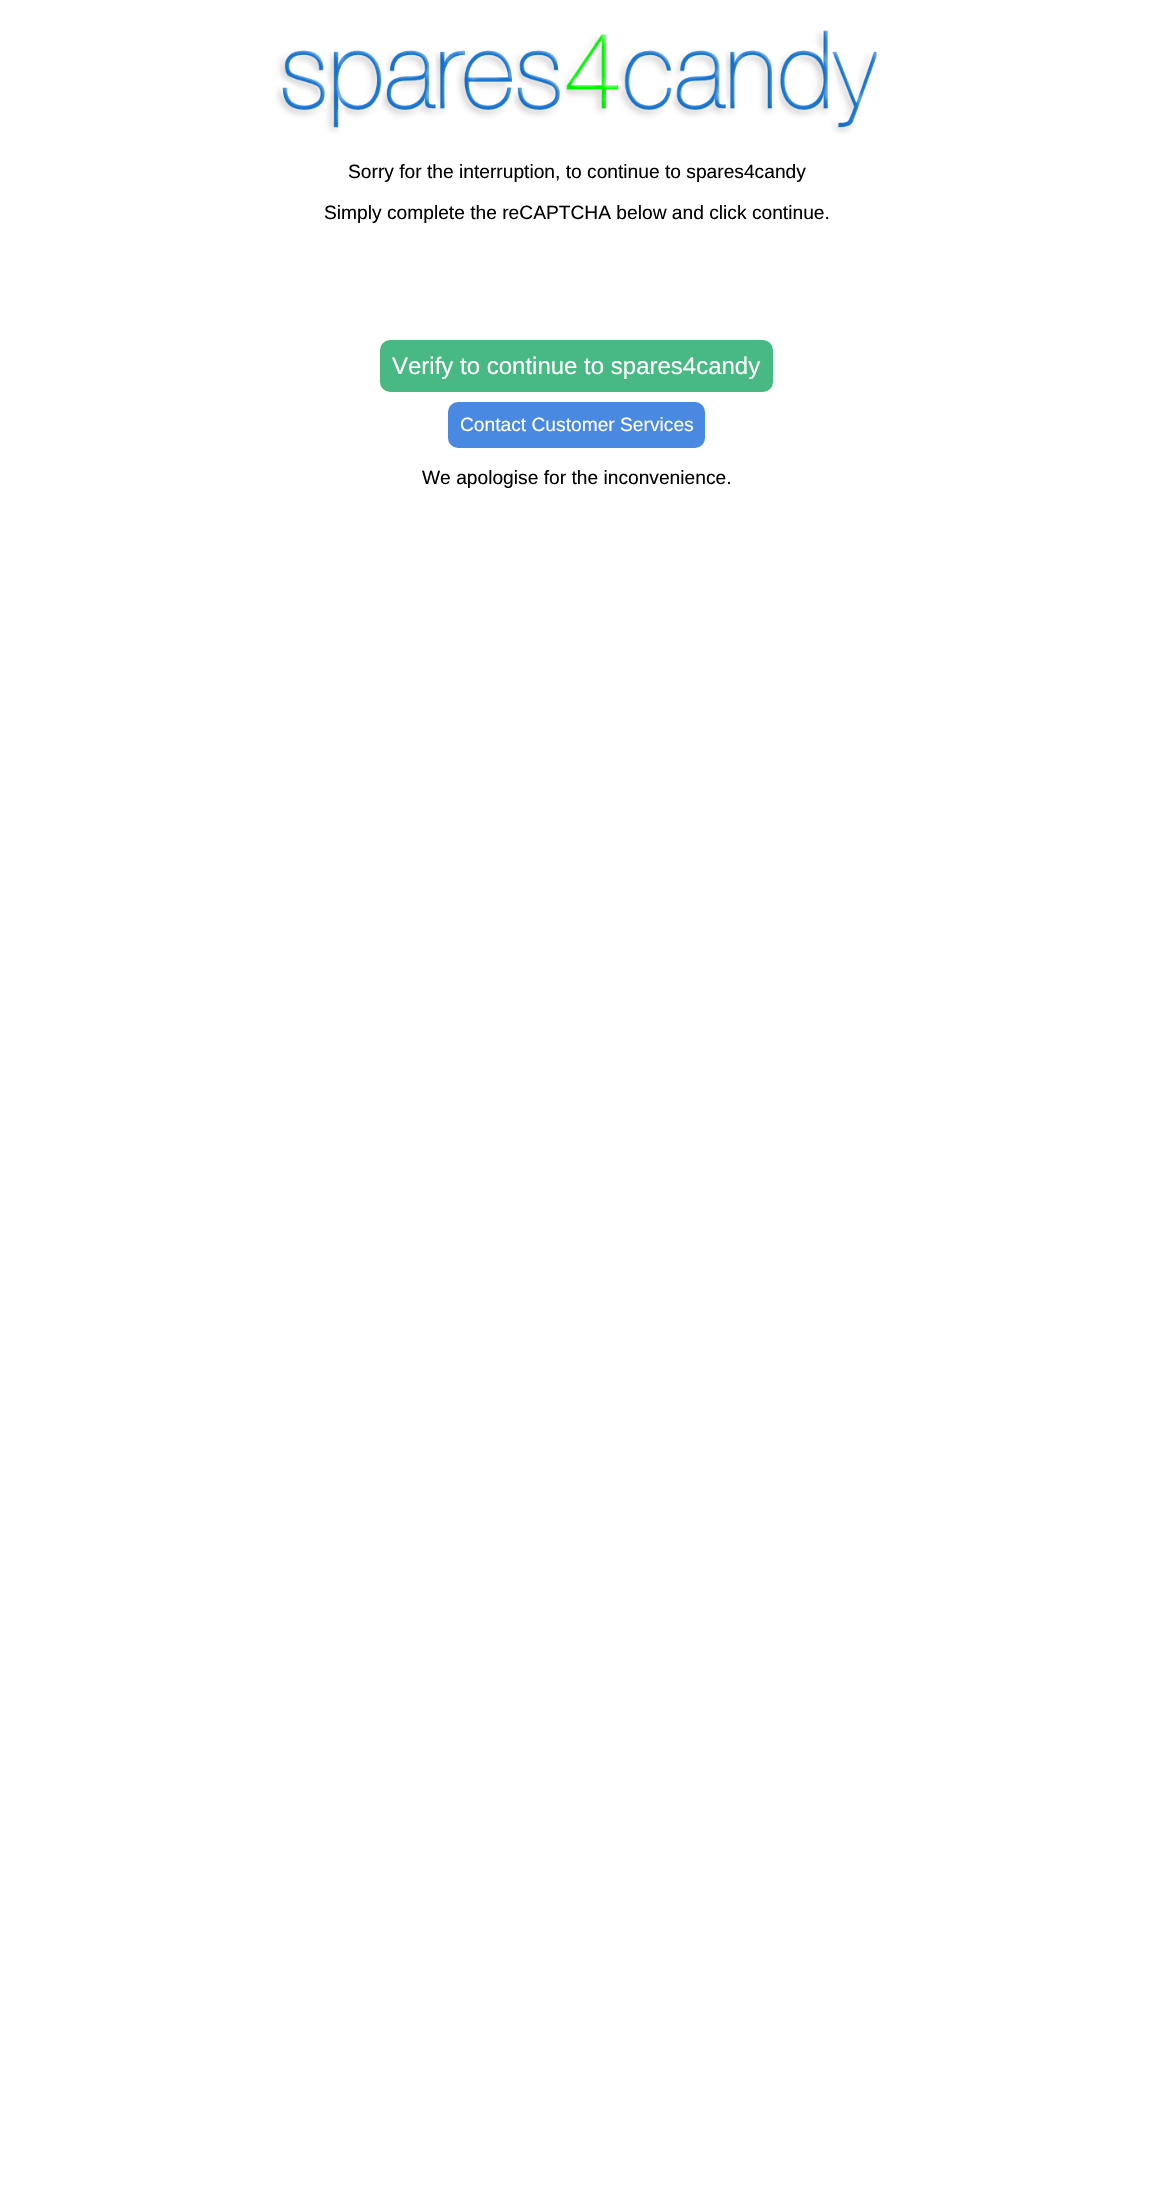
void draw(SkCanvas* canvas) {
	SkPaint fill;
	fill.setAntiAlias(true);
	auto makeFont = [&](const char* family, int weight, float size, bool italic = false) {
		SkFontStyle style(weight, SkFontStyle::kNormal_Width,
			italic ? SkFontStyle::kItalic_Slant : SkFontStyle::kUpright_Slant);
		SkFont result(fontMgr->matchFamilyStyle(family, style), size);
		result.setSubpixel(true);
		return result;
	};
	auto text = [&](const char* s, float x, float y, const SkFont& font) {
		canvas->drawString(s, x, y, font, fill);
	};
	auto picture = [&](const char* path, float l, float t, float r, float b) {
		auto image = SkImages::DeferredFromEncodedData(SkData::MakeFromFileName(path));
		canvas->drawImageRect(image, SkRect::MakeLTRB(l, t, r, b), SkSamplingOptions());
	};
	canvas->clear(0xFFFFFFFF);
	picture("image0.png", 276, 30, 877, 134);
	fill.setColor(0xFF48B983);
	canvas->drawRoundRect(SkRect::MakeLTRB(381, 341, 772, 391), 9, 9, fill);
	fill.setStyle(SkPaint::kStroke_Style);
	fill.setStrokeWidth(2);
	canvas->drawRoundRect(SkRect::MakeLTRB(381, 341, 772, 391), 9, 9, fill);
	fill.setStyle(SkPaint::kFill_Style);
	fill.setColor(0xFF4989E1);
	canvas->drawRoundRect(SkRect::MakeLTRB(449, 403, 704, 447), 9, 9, fill);
	fill.setStyle(SkPaint::kStroke_Style);
	canvas->drawRoundRect(SkRect::MakeLTRB(449, 403, 704, 447), 9, 9, fill);
	auto font1 = makeFont("Liberation Sans", 400, 19.2f);
	fill.setStyle(SkPaint::kFill_Style);
	fill.setColor(0xFF000000);
	text("Sorry for the interruption, to continue to spares4candy", 348, 178, font1);
	text("Simply complete the reCAPTCHA below and click continue.", 324, 219, font1);
	auto font2 = makeFont("Liberation Sans", 400, 24);
	fill.setColor(0xFFFFFFFF);
	text("Verify to continue to spares4candy", 392, 374, font2);
	text("Contact Customer Services", 460, 431, font1);
	fill.setColor(0xFF000000);
	text("We apologise for the inconvenience.", 422, 484, font1);
}
